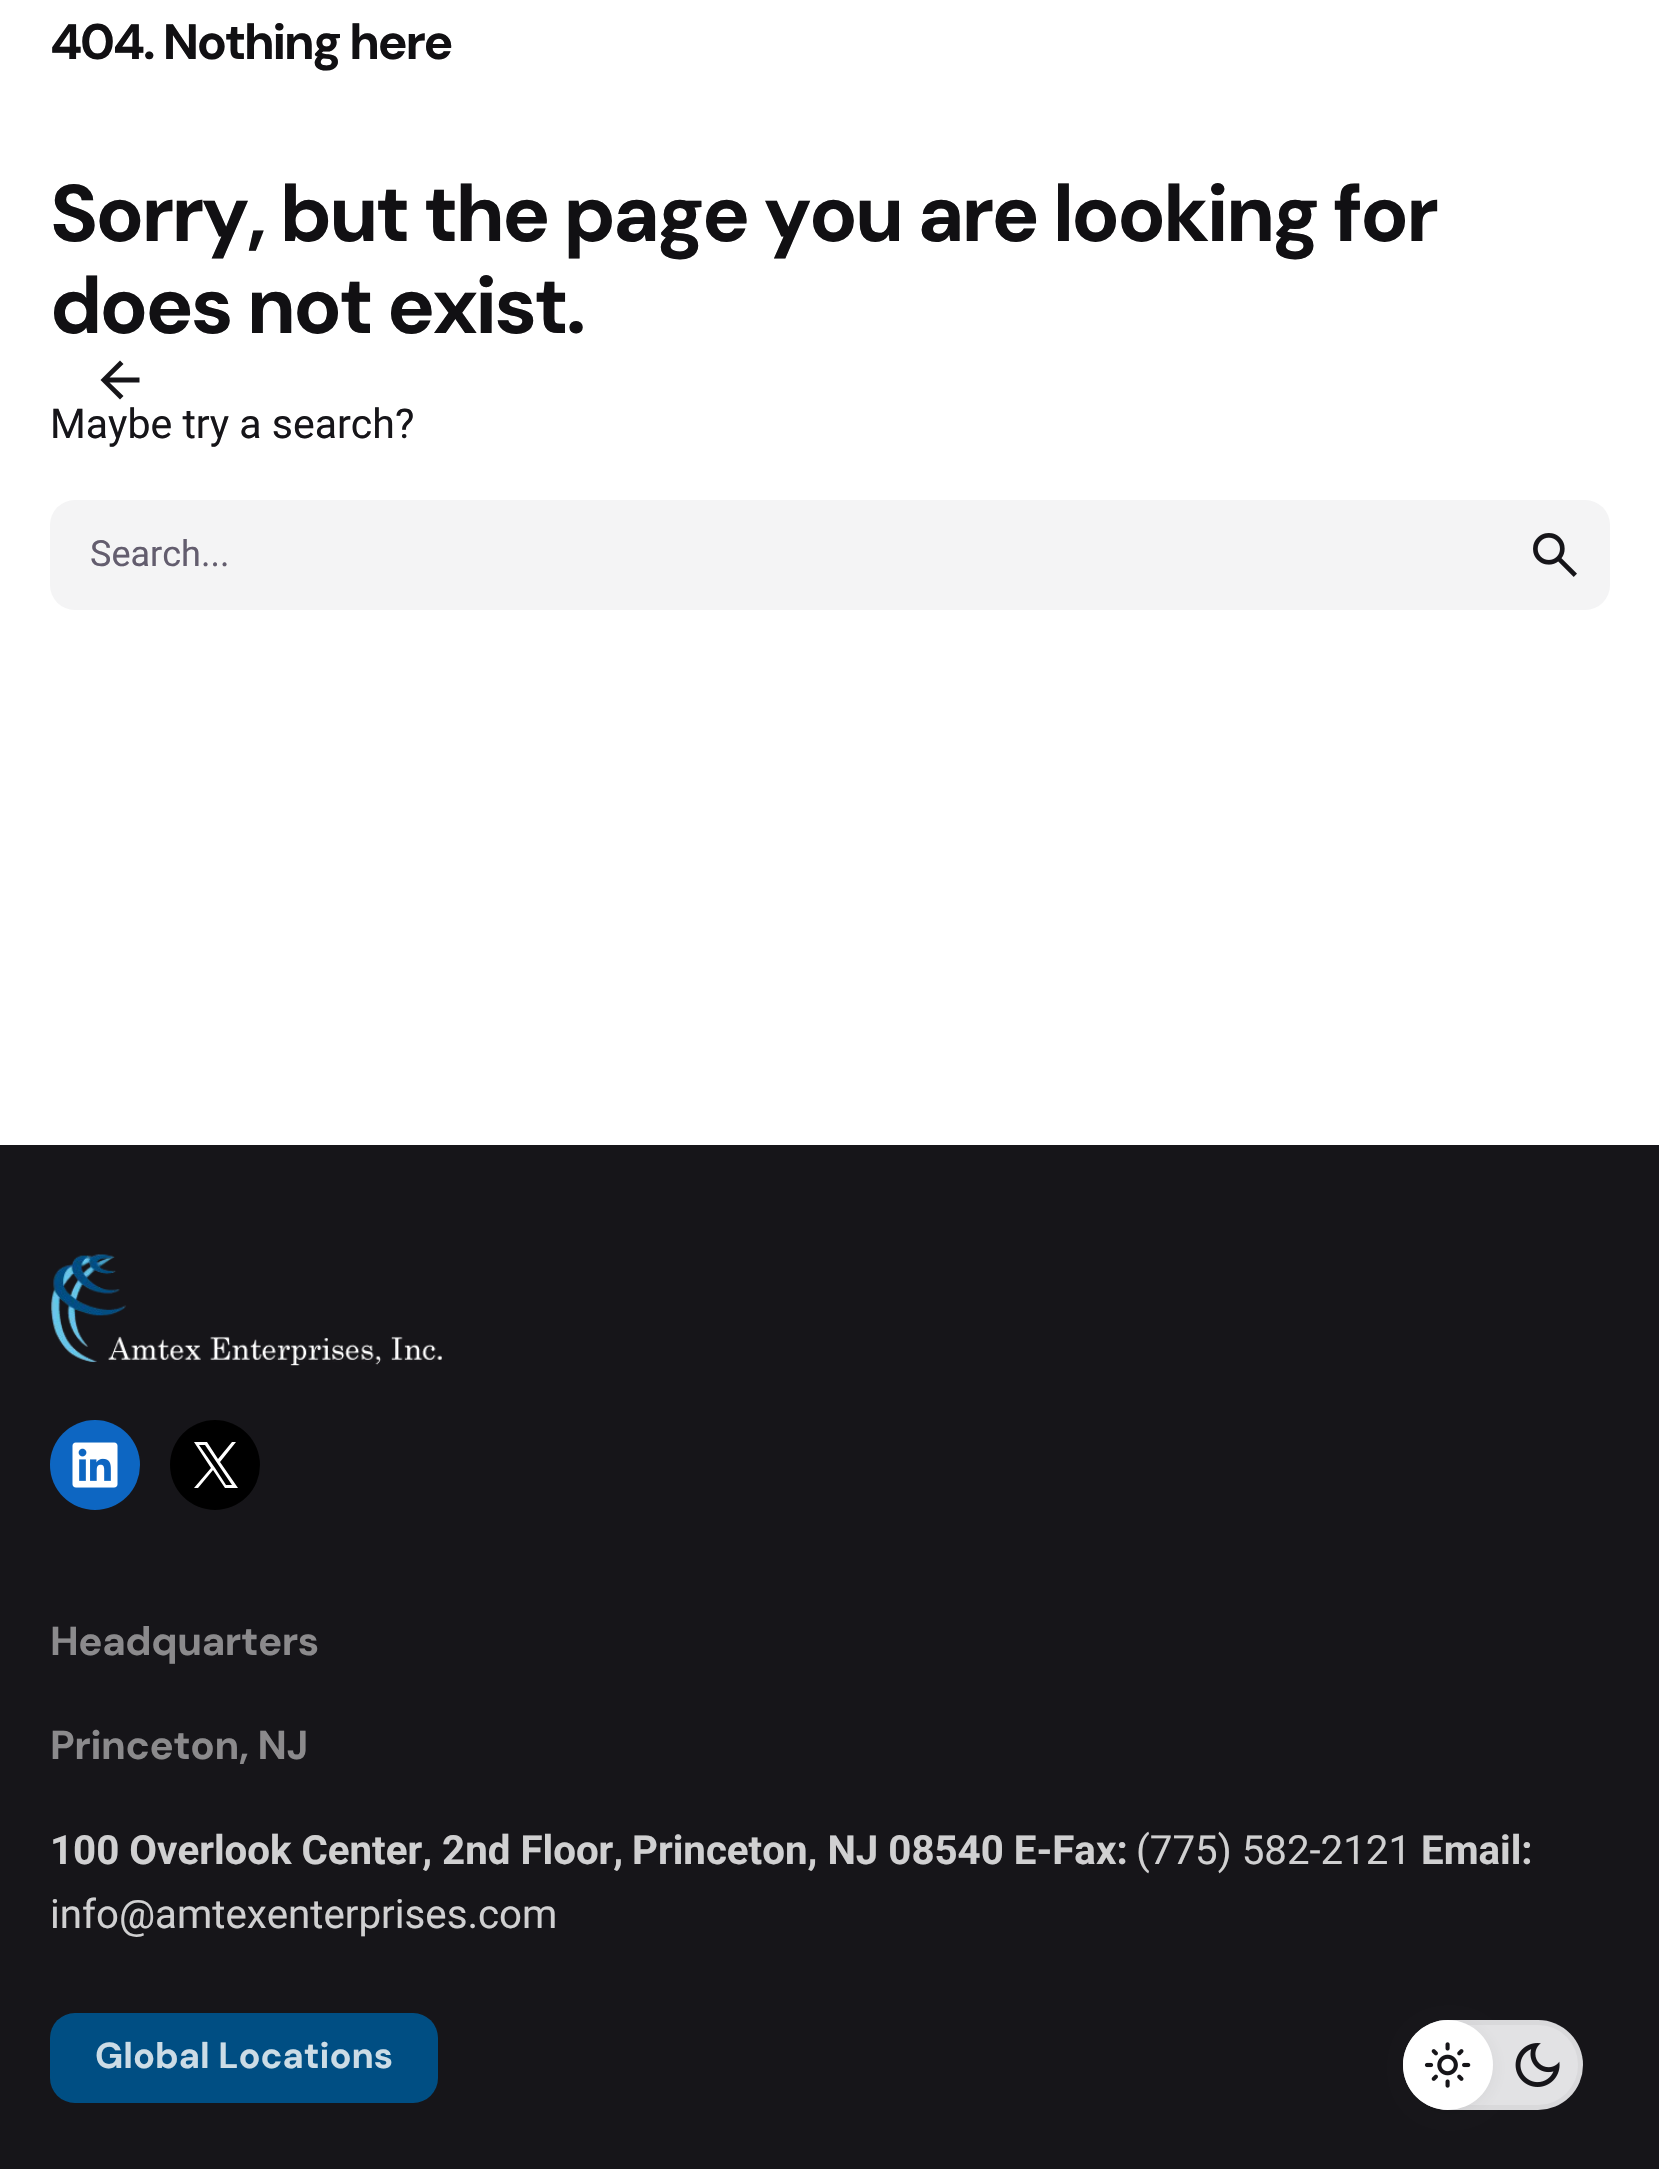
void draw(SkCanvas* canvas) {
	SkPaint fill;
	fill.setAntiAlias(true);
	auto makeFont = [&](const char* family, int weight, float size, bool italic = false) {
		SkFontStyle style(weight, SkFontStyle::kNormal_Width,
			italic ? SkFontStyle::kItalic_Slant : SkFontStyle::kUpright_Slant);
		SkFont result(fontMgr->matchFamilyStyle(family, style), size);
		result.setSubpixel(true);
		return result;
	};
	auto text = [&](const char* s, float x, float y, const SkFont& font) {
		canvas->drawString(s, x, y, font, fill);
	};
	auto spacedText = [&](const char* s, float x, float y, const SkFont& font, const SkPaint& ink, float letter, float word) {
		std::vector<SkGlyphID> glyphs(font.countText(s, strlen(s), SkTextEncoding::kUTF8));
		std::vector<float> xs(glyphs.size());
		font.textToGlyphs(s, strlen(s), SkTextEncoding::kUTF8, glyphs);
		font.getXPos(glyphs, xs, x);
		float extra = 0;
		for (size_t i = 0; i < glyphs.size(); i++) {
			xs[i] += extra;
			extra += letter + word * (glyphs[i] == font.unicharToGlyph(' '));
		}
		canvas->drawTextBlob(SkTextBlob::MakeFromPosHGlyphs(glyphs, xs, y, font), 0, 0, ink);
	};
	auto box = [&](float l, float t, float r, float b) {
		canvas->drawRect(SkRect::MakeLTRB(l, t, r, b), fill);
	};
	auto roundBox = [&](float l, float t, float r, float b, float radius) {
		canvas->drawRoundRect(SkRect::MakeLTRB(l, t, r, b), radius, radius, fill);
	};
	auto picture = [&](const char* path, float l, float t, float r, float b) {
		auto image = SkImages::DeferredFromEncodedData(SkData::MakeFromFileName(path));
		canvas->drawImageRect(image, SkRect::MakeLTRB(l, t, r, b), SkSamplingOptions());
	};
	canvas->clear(0xFFFFFFFF);
	fill.setColor(0xFF161519);
	canvas->drawPath(SkPathBuilder().moveTo(109.5f, 382.5f).lineTo(123.5f, 396).lineTo(120, 399.5f).lineTo(100.5f, 380).lineTo(120, 360.5f).lineTo(123.5f, 364).lineTo(109.5f, 377.5f).lineTo(139.5f, 377.5f).lineTo(139.5f, 382.5f).close().detach(), fill);
	fill.setColor(0xFFF4F4F5);
	roundBox(50, 500, 1610, 610, 25);
	picture("image0.png", 1533, 533, 1577, 577);
	fill.setColor(0xFF161519);
	box(0, 1145, 1659, 2169);
	picture("image1.png", 51, 1254, 442, 1366);
	fill.setColor(0xFF0D66C2);
	canvas->drawCircle(95, 1465, 45, fill);
	picture("image2.png", 72, 1442, 118, 1488);
	fill.setColor(0xFF000000);
	canvas->drawCircle(215, 1465, 45, fill);
	fill.setColor(0xFFFFFFFF);
	canvas->drawPath(SkPathBuilder().moveTo(220, 1462).lineTo(236, 1442).lineTo(232, 1442).lineTo(218, 1459).lineTo(207, 1442).lineTo(194, 1442).lineTo(211, 1468).lineTo(194, 1488).lineTo(198, 1488).lineTo(213, 1470).lineTo(225, 1488).lineTo(238, 1488).close().moveTo(215, 1468).lineTo(199, 1445).lineTo(205, 1445).lineTo(232, 1485).lineTo(226, 1485).close().detach(), fill);
	fill.setColor(0xFF004E83);
	roundBox(50, 2013, 438, 2103, 25);
	fill.setColor(0xFFE2E2E4);
	roundBox(1403, 2020, 1583, 2110, 45);
	fill.setStyle(SkPaint::kStroke_Style);
	fill.setStrokeWidth(5);
	fill.setColor(0x1A8A8A93);
	canvas->drawRoundRect(SkRect::MakeLTRB(1405.5f, 2022.5f, 1580.5f, 2107.5f), 42.5f, 42.5f, fill);
	picture("image4.png", 1515, 2043, 1560, 2087);
	fill.setStyle(SkPaint::kFill_Style);
	fill.setColor(0x0D111013);
	fill.setMaskFilter(SkMaskFilter::MakeBlur(kNormal_SkBlurStyle, 7.5f));
	canvas->drawRoundRect(SkRect::MakeLTRB(1405, 2023, 1495, 2113), 45, 45, fill);
	fill.setMaskFilter(nullptr);
	fill.setColor(0xFFFFFFFF);
	canvas->drawCircle(1448, 2065, 45, fill);
	picture("image3.png", 1424, 2042, 1471, 2088);
	auto font1 = makeFont("DM Sans", 700, 49.75f);
	fill.setColor(0xFF111013);
	spacedText("404. Nothing here", 50, 59, font1, fill, -2.25f, 0);
	auto font2 = makeFont("DM Sans", 700, 80);
	spacedText("Sorry, but the page you are looking for", 50, 241, font2, fill, -2.8f, 0);
	spacedText("does not exist.", 50, 333, font2, fill, -2.8f, 0);
	auto font3 = makeFont("Roboto", 400, 41);
	fill.setColor(0xFF161519);
	text("Maybe try a search?", 50, 438, font3);
	auto font4 = makeFont("Roboto", 400, 36);
	fill.setColor(0xFF635D6E);
	text("Search...", 90, 566, font4);
	auto font5 = makeFont("DM Sans", 700, 40.25f);
	fill.setColor(0xFF8B8A8C);
	spacedText("Headquarters", 50, 1655, font5, fill, -0.4f, 0);
	spacedText("Princeton, NJ", 50, 1759, font5, fill, -0.4f, 0);
	auto font6 = makeFont("Roboto", 700, 40.25f);
	fill.setColor(0xFFD0D0D1);
	text("100 Overlook Center, 2nd Floor,", 50, 1864, font6);
	text("Princeton, NJ 08540 E-Fax:", 632, 1864, font6);
	auto font7 = makeFont("Roboto", 400, 40.25f);
	text("(775) 582-2121", 1136, 1864, font7);
	text("Email:", 1421, 1864, font6);
	text("info@amtexenterprises.com", 50, 1928, font7);
	auto font8 = makeFont("DM Sans", 700, 36.25f);
	fill.setColor(0xFFCCDCE6);
	text("Global Locations", 95, 2068, font8);
}
